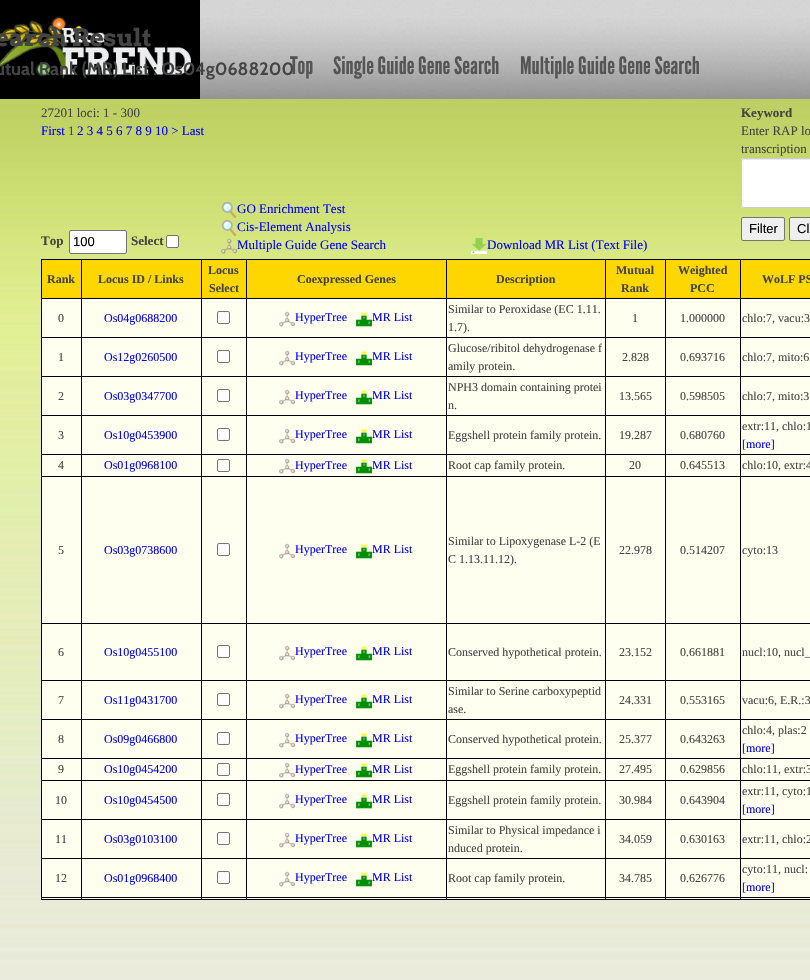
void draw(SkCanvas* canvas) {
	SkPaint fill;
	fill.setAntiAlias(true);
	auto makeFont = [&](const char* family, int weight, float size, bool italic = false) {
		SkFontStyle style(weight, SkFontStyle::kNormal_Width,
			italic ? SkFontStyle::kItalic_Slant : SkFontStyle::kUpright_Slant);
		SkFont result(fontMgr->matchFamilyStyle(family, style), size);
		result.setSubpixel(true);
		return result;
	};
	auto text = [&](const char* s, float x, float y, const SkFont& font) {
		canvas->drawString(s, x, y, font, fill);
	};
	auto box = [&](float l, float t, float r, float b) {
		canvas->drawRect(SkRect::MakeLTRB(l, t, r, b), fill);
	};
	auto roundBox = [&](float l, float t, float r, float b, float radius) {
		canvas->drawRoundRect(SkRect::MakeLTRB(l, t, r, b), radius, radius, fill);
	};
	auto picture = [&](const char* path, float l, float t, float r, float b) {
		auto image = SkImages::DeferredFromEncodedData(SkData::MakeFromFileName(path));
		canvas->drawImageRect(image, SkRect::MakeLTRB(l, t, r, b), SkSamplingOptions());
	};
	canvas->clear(0xFFFFFFFF);
	picture("image0.png", 0, 99, 810, 980);
	picture("image1.png", 200, 0, 810, 99);
	picture("image2.png", 0, 0, 200, 99);
	fill.setColor(0xFFFFFFFF);
	canvas->drawRoundRect(SkRect::MakeLTRB(69.5f, 230.5f, 126.5f, 253.5f), 1.5f, 1.5f, fill);
	fill.setStyle(SkPaint::kStroke_Style);
	fill.setStrokeWidth(1);
	fill.setColor(0xFF767676);
	canvas->drawRoundRect(SkRect::MakeLTRB(69.5f, 230.5f, 126.5f, 253.5f), 1.5f, 1.5f, fill);
	fill.setStyle(SkPaint::kFill_Style);
	fill.setColor(0xFFFFFFFF);
	canvas->drawRoundRect(SkRect::MakeLTRB(166.5f, 235.5f, 178.5f, 247.5f), 1.5f, 1.5f, fill);
	fill.setStyle(SkPaint::kStroke_Style);
	fill.setColor(0xFF767676);
	canvas->drawRoundRect(SkRect::MakeLTRB(166.5f, 235.5f, 178.5f, 247.5f), 1.5f, 1.5f, fill);
	picture("image3.png", 221, 202, 237, 218);
	picture("image4.png", 221, 220, 237, 236);
	picture("image5.png", 221, 238, 237, 254);
	picture("image6.png", 471, 238, 487, 254);
	fill.setStyle(SkPaint::kFill_Style);
	fill.setColor(0xFFFFFFFF);
	roundBox(741, 158, 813, 208, 3);
	fill.setColor(0xFFECECEC);
	canvas->drawPath(SkPathBuilder().moveTo(744, 160).lineTo(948, 160).lineTo(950, 161).lineTo(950, 162).cubicTo(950, 161, 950, 159, 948, 159).lineTo(744, 159).cubicTo(742, 159, 742, 161, 742, 162).cubicTo(742, 161, 743, 160, 744, 160).close().detach(), fill);
	fill.setStyle(SkPaint::kStroke_Style);
	fill.setColor(0xFFCCCCCC);
	canvas->drawRoundRect(SkRect::MakeLTRB(741.5f, 158.5f, 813.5f, 207.5f), 2.5f, 2.5f, fill);
	fill.setStyle(SkPaint::kFill_Style);
	fill.setColor(0xFFEFEFEF);
	canvas->drawRoundRect(SkRect::MakeLTRB(741.5f, 217.5f, 784.5f, 240.5f), 1.5f, 1.5f, fill);
	fill.setStyle(SkPaint::kStroke_Style);
	fill.setColor(0xFF767676);
	canvas->drawRoundRect(SkRect::MakeLTRB(741.5f, 217.5f, 784.5f, 240.5f), 1.5f, 1.5f, fill);
	fill.setStyle(SkPaint::kFill_Style);
	fill.setColor(0xFFEFEFEF);
	canvas->drawRoundRect(SkRect::MakeLTRB(789.5f, 217.5f, 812.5f, 240.5f), 1.5f, 1.5f, fill);
	fill.setStyle(SkPaint::kStroke_Style);
	fill.setColor(0xFF767676);
	canvas->drawRoundRect(SkRect::MakeLTRB(789.5f, 217.5f, 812.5f, 240.5f), 1.5f, 1.5f, fill);
	fill.setStyle(SkPaint::kFill_Style);
	fill.setColor(0xFFFFD700);
	box(42, 260, 810, 298);
	fill.setColor(0xFF000000);
	box(41, 259, 810, 260);
	box(41, 298, 810, 299);
	box(41, 259, 42, 299);
	box(81, 259, 82, 299);
	box(201, 259, 202, 299);
	box(246, 259, 247, 299);
	box(446, 259, 447, 299);
	box(605, 259, 606, 299);
	box(665, 259, 666, 299);
	box(740, 259, 741, 299);
	box(41, 899, 810, 900);
	fill.setColor(0xFFFFFFF0);
	box(42, 299, 810, 899);
	fill.setColor(0xFF000000);
	box(740, 897, 741, 899);
	box(740, 897, 810, 898);
	box(740, 858, 741, 898);
	box(740, 858, 810, 859);
	box(740, 819, 741, 859);
	box(740, 819, 810, 820);
	box(740, 780, 741, 820);
	box(740, 780, 810, 781);
	box(740, 758, 741, 781);
	box(740, 758, 810, 759);
	box(740, 719, 741, 759);
	box(740, 719, 810, 720);
	box(740, 680, 741, 720);
	box(740, 680, 810, 681);
	box(740, 623, 741, 681);
	box(740, 623, 810, 624);
	box(740, 476, 741, 624);
	box(740, 476, 810, 477);
	box(740, 454, 741, 477);
	box(740, 454, 810, 455);
	box(740, 415, 741, 455);
	box(740, 415, 810, 416);
	box(740, 376, 741, 416);
	box(740, 376, 810, 377);
	box(740, 337, 741, 377);
	box(740, 337, 810, 338);
	box(740, 299, 741, 338);
	box(665, 897, 666, 899);
	box(665, 897, 741, 898);
	box(665, 858, 666, 898);
	box(665, 858, 741, 859);
	box(665, 819, 666, 859);
	box(665, 819, 741, 820);
	box(665, 780, 666, 820);
	box(665, 780, 741, 781);
	box(665, 758, 666, 781);
	box(665, 758, 741, 759);
	box(665, 719, 666, 759);
	box(665, 719, 741, 720);
	box(665, 680, 666, 720);
	box(665, 680, 741, 681);
	box(665, 623, 666, 681);
	box(665, 623, 741, 624);
	box(665, 476, 666, 624);
	box(665, 476, 741, 477);
	box(665, 454, 666, 477);
	box(665, 454, 741, 455);
	box(665, 415, 666, 455);
	box(665, 415, 741, 416);
	box(665, 376, 666, 416);
	box(665, 376, 741, 377);
	box(665, 337, 666, 377);
	box(665, 337, 741, 338);
	box(665, 299, 666, 338);
	box(605, 897, 606, 899);
	box(605, 897, 666, 898);
	box(605, 858, 606, 898);
	box(605, 858, 666, 859);
	box(605, 819, 606, 859);
	box(605, 819, 666, 820);
	box(605, 780, 606, 820);
	box(605, 780, 666, 781);
	box(605, 758, 606, 781);
	box(605, 758, 666, 759);
	box(605, 719, 606, 759);
	box(605, 719, 666, 720);
	box(605, 680, 606, 720);
	box(605, 680, 666, 681);
	box(605, 623, 606, 681);
	box(605, 623, 666, 624);
	box(605, 476, 606, 624);
	box(605, 476, 666, 477);
	box(605, 454, 606, 477);
	box(605, 454, 666, 455);
	box(605, 415, 606, 455);
	box(605, 415, 666, 416);
	box(605, 376, 606, 416);
	box(605, 376, 666, 377);
	box(605, 337, 606, 377);
	box(605, 337, 666, 338);
	box(605, 299, 606, 338);
	box(446, 897, 447, 899);
	box(446, 897, 606, 898);
	box(446, 858, 447, 898);
	box(446, 858, 606, 859);
	box(446, 819, 447, 859);
	box(446, 819, 606, 820);
	box(446, 780, 447, 820);
	box(446, 780, 606, 781);
	box(446, 758, 447, 781);
	box(446, 758, 606, 759);
	box(446, 719, 447, 759);
	box(446, 719, 606, 720);
	box(446, 680, 447, 720);
	box(446, 680, 606, 681);
	box(446, 623, 447, 681);
	box(446, 623, 606, 624);
	box(446, 476, 447, 624);
	box(446, 476, 606, 477);
	box(446, 454, 447, 477);
	box(446, 454, 606, 455);
	box(446, 415, 447, 455);
	box(446, 415, 606, 416);
	box(446, 376, 447, 416);
	box(446, 376, 606, 377);
	box(446, 337, 447, 377);
	box(446, 337, 606, 338);
	box(446, 299, 447, 338);
	box(246, 897, 247, 899);
	box(246, 897, 447, 898);
	box(246, 858, 247, 898);
	box(246, 858, 447, 859);
	box(246, 819, 247, 859);
	box(246, 819, 447, 820);
	box(246, 780, 247, 820);
	box(246, 780, 447, 781);
	box(246, 758, 247, 781);
	box(246, 758, 447, 759);
	box(246, 719, 247, 759);
	box(246, 719, 447, 720);
	box(246, 680, 247, 720);
	box(246, 680, 447, 681);
	box(246, 623, 247, 681);
	box(246, 623, 447, 624);
	box(246, 476, 247, 624);
	box(246, 476, 447, 477);
	box(246, 454, 247, 477);
	box(246, 454, 447, 455);
	box(246, 415, 247, 455);
	box(246, 415, 447, 416);
	box(246, 376, 247, 416);
	box(246, 376, 447, 377);
	box(246, 337, 247, 377);
	box(246, 337, 447, 338);
	box(246, 299, 247, 338);
	box(201, 897, 202, 899);
	box(201, 897, 247, 898);
	box(201, 858, 202, 898);
	box(201, 858, 247, 859);
	box(201, 819, 202, 859);
	box(201, 819, 247, 820);
	box(201, 780, 202, 820);
	box(201, 780, 247, 781);
	box(201, 758, 202, 781);
	box(201, 758, 247, 759);
	box(201, 719, 202, 759);
	box(201, 719, 247, 720);
	box(201, 680, 202, 720);
	box(201, 680, 247, 681);
	box(201, 623, 202, 681);
	box(201, 623, 247, 624);
	box(201, 476, 202, 624);
	box(201, 476, 247, 477);
	box(201, 454, 202, 477);
	box(201, 454, 247, 455);
	box(201, 415, 202, 455);
	box(201, 415, 247, 416);
	box(201, 376, 202, 416);
	box(201, 376, 247, 377);
	box(201, 337, 202, 377);
	box(201, 337, 247, 338);
	box(201, 299, 202, 338);
	box(81, 897, 82, 899);
	box(81, 897, 202, 898);
	box(81, 858, 82, 898);
	box(81, 858, 202, 859);
	box(81, 819, 82, 859);
	box(81, 819, 202, 820);
	box(81, 780, 82, 820);
	box(81, 780, 202, 781);
	box(81, 758, 82, 781);
	box(81, 758, 202, 759);
	box(81, 719, 82, 759);
	box(81, 719, 202, 720);
	box(81, 680, 82, 720);
	box(81, 680, 202, 681);
	box(81, 623, 82, 681);
	box(81, 623, 202, 624);
	box(81, 476, 82, 624);
	box(81, 476, 202, 477);
	box(81, 454, 82, 477);
	box(81, 454, 202, 455);
	box(81, 415, 82, 455);
	box(81, 415, 202, 416);
	box(81, 376, 82, 416);
	box(81, 376, 202, 377);
	box(81, 337, 82, 377);
	box(81, 337, 202, 338);
	box(81, 299, 82, 338);
	box(41, 897, 42, 899);
	box(41, 897, 82, 898);
	box(41, 858, 42, 898);
	box(41, 858, 82, 859);
	box(41, 819, 42, 859);
	box(41, 819, 82, 820);
	box(41, 780, 42, 820);
	box(41, 780, 82, 781);
	box(41, 758, 42, 781);
	box(41, 758, 82, 759);
	box(41, 719, 42, 759);
	box(41, 719, 82, 720);
	box(41, 680, 42, 720);
	box(41, 680, 82, 681);
	box(41, 623, 42, 681);
	box(41, 623, 82, 624);
	box(41, 476, 42, 624);
	box(41, 476, 82, 477);
	box(41, 454, 42, 477);
	box(41, 454, 82, 455);
	box(41, 415, 42, 455);
	box(41, 415, 82, 416);
	box(41, 376, 42, 416);
	box(41, 376, 82, 377);
	box(41, 337, 42, 377);
	box(41, 337, 82, 338);
	box(41, 299, 42, 338);
	fill.setColor(0xFFFFFFFF);
	canvas->drawRoundRect(SkRect::MakeLTRB(217.5f, 311.5f, 229.5f, 323.5f), 1.5f, 1.5f, fill);
	fill.setStyle(SkPaint::kStroke_Style);
	fill.setColor(0xFF767676);
	canvas->drawRoundRect(SkRect::MakeLTRB(217.5f, 311.5f, 229.5f, 323.5f), 1.5f, 1.5f, fill);
	picture("image7.png", 279, 311, 295, 327);
	picture("image8.png", 356, 311, 372, 327);
	fill.setStyle(SkPaint::kFill_Style);
	fill.setColor(0xFFFFFFFF);
	canvas->drawRoundRect(SkRect::MakeLTRB(217.5f, 350.5f, 229.5f, 362.5f), 1.5f, 1.5f, fill);
	fill.setStyle(SkPaint::kStroke_Style);
	fill.setColor(0xFF767676);
	canvas->drawRoundRect(SkRect::MakeLTRB(217.5f, 350.5f, 229.5f, 362.5f), 1.5f, 1.5f, fill);
	picture("image7.png", 279, 350, 295, 366);
	picture("image8.png", 356, 350, 372, 366);
	fill.setStyle(SkPaint::kFill_Style);
	fill.setColor(0xFFFFFFFF);
	canvas->drawRoundRect(SkRect::MakeLTRB(217.5f, 389.5f, 229.5f, 401.5f), 1.5f, 1.5f, fill);
	fill.setStyle(SkPaint::kStroke_Style);
	fill.setColor(0xFF767676);
	canvas->drawRoundRect(SkRect::MakeLTRB(217.5f, 389.5f, 229.5f, 401.5f), 1.5f, 1.5f, fill);
	picture("image7.png", 279, 389, 295, 405);
	picture("image8.png", 356, 389, 372, 405);
	fill.setStyle(SkPaint::kFill_Style);
	fill.setColor(0xFFFFFFFF);
	canvas->drawRoundRect(SkRect::MakeLTRB(217.5f, 428.5f, 229.5f, 440.5f), 1.5f, 1.5f, fill);
	fill.setStyle(SkPaint::kStroke_Style);
	fill.setColor(0xFF767676);
	canvas->drawRoundRect(SkRect::MakeLTRB(217.5f, 428.5f, 229.5f, 440.5f), 1.5f, 1.5f, fill);
	picture("image7.png", 279, 428, 295, 444);
	picture("image8.png", 356, 428, 372, 444);
	fill.setStyle(SkPaint::kFill_Style);
	fill.setColor(0xFFFFFFFF);
	canvas->drawRoundRect(SkRect::MakeLTRB(217.5f, 459.5f, 229.5f, 471.5f), 1.5f, 1.5f, fill);
	fill.setStyle(SkPaint::kStroke_Style);
	fill.setColor(0xFF767676);
	canvas->drawRoundRect(SkRect::MakeLTRB(217.5f, 459.5f, 229.5f, 471.5f), 1.5f, 1.5f, fill);
	picture("image7.png", 279, 458, 295, 474);
	picture("image8.png", 356, 458, 372, 474);
	fill.setStyle(SkPaint::kFill_Style);
	fill.setColor(0xFFFFFFFF);
	canvas->drawRoundRect(SkRect::MakeLTRB(217.5f, 543.5f, 229.5f, 555.5f), 1.5f, 1.5f, fill);
	fill.setStyle(SkPaint::kStroke_Style);
	fill.setColor(0xFF767676);
	canvas->drawRoundRect(SkRect::MakeLTRB(217.5f, 543.5f, 229.5f, 555.5f), 1.5f, 1.5f, fill);
	picture("image7.png", 279, 543, 295, 559);
	picture("image8.png", 356, 543, 372, 559);
	fill.setStyle(SkPaint::kFill_Style);
	fill.setColor(0xFFFFFFFF);
	canvas->drawRoundRect(SkRect::MakeLTRB(217.5f, 645.5f, 229.5f, 657.5f), 1.5f, 1.5f, fill);
	fill.setStyle(SkPaint::kStroke_Style);
	fill.setColor(0xFF767676);
	canvas->drawRoundRect(SkRect::MakeLTRB(217.5f, 645.5f, 229.5f, 657.5f), 1.5f, 1.5f, fill);
	picture("image7.png", 279, 645, 295, 661);
	picture("image8.png", 356, 645, 372, 661);
	fill.setStyle(SkPaint::kFill_Style);
	fill.setColor(0xFFFFFFFF);
	canvas->drawRoundRect(SkRect::MakeLTRB(217.5f, 693.5f, 229.5f, 705.5f), 1.5f, 1.5f, fill);
	fill.setStyle(SkPaint::kStroke_Style);
	fill.setColor(0xFF767676);
	canvas->drawRoundRect(SkRect::MakeLTRB(217.5f, 693.5f, 229.5f, 705.5f), 1.5f, 1.5f, fill);
	picture("image7.png", 279, 693, 295, 709);
	picture("image8.png", 356, 693, 372, 709);
	fill.setStyle(SkPaint::kFill_Style);
	fill.setColor(0xFFFFFFFF);
	canvas->drawRoundRect(SkRect::MakeLTRB(217.5f, 732.5f, 229.5f, 744.5f), 1.5f, 1.5f, fill);
	fill.setStyle(SkPaint::kStroke_Style);
	fill.setColor(0xFF767676);
	canvas->drawRoundRect(SkRect::MakeLTRB(217.5f, 732.5f, 229.5f, 744.5f), 1.5f, 1.5f, fill);
	picture("image7.png", 279, 732, 295, 748);
	picture("image8.png", 356, 732, 372, 748);
	fill.setStyle(SkPaint::kFill_Style);
	fill.setColor(0xFFFFFFFF);
	canvas->drawRoundRect(SkRect::MakeLTRB(217.5f, 763.5f, 229.5f, 775.5f), 1.5f, 1.5f, fill);
	fill.setStyle(SkPaint::kStroke_Style);
	fill.setColor(0xFF767676);
	canvas->drawRoundRect(SkRect::MakeLTRB(217.5f, 763.5f, 229.5f, 775.5f), 1.5f, 1.5f, fill);
	picture("image7.png", 279, 762, 295, 778);
	picture("image8.png", 356, 762, 372, 778);
	fill.setStyle(SkPaint::kFill_Style);
	fill.setColor(0xFFFFFFFF);
	canvas->drawRoundRect(SkRect::MakeLTRB(217.5f, 793.5f, 229.5f, 805.5f), 1.5f, 1.5f, fill);
	fill.setStyle(SkPaint::kStroke_Style);
	fill.setColor(0xFF767676);
	canvas->drawRoundRect(SkRect::MakeLTRB(217.5f, 793.5f, 229.5f, 805.5f), 1.5f, 1.5f, fill);
	picture("image7.png", 279, 793, 295, 809);
	picture("image8.png", 356, 793, 372, 809);
	fill.setStyle(SkPaint::kFill_Style);
	fill.setColor(0xFFFFFFFF);
	canvas->drawRoundRect(SkRect::MakeLTRB(217.5f, 832.5f, 229.5f, 844.5f), 1.5f, 1.5f, fill);
	fill.setStyle(SkPaint::kStroke_Style);
	fill.setColor(0xFF767676);
	canvas->drawRoundRect(SkRect::MakeLTRB(217.5f, 832.5f, 229.5f, 844.5f), 1.5f, 1.5f, fill);
	picture("image7.png", 279, 832, 295, 848);
	picture("image8.png", 356, 832, 372, 848);
	fill.setStyle(SkPaint::kFill_Style);
	fill.setColor(0xFFFFFFFF);
	canvas->drawRoundRect(SkRect::MakeLTRB(217.5f, 871.5f, 229.5f, 883.5f), 1.5f, 1.5f, fill);
	fill.setStyle(SkPaint::kStroke_Style);
	fill.setColor(0xFF767676);
	canvas->drawRoundRect(SkRect::MakeLTRB(217.5f, 871.5f, 229.5f, 883.5f), 1.5f, 1.5f, fill);
	picture("image7.png", 279, 871, 295, 887);
	picture("image8.png", 356, 871, 372, 887);
	auto font1 = makeFont("Arvo", 700, 24);
	fill.setStyle(SkPaint::kFill_Style);
	fill.setColor(0xFF444444);
	text("earch Result", -5, 46, font1);
	auto font2 = makeFont("Cabin", 700, 18);
	text("utual Rank (MR) List : Os04g0688200", -5, 75, font2);
	auto font3 = makeFont("League Gothic", 400, 24);
	fill.setColor(0xFF555555);
	text("Top", 290, 74, font3);
	text("Single Guide Gene Search", 333, 74, font3);
	text("Multiple Guide Gene Search", 520, 74, font3);
	auto font4 = makeFont("Liberation Serif", 400, 13);
	fill.setColor(0xFF444444);
	text("27201 loci: 1 - 300", 41, 117, font4);
	fill.setColor(0xFF0000FF);
	text("First", 41, 135, font4);
	fill.setColor(0xFF444444);
	text("1", 68, 135, font4);
	fill.setColor(0xFF0000FF);
	text("2 3 4 5 6 7 8 9 10 > Last", 77, 135, font4);
	auto font5 = makeFont("Liberation Serif", 700, 13);
	fill.setColor(0xFF444444);
	text("Top", 41, 245, font5);
	auto font6 = makeFont("Liberation Sans", 400, 13);
	fill.setColor(0xFF000000);
	text("100", 73, 246, font6);
	fill.setColor(0xFF444444);
	text("Select", 131, 245, font5);
	fill.setColor(0xFF0000FF);
	text("GO Enrichment Test", 237, 213, font4);
	text("Cis-Element Analysis", 237, 231, font4);
	text("Multiple Guide Gene Search", 237, 249, font4);
	text("Download MR List (Text File)", 487, 249, font4);
	fill.setColor(0xFF444444);
	text("Keyword", 741, 117, font5);
	text("Enter RAP lo", 741, 135, font4);
	text("transcription", 741, 153, font4);
	fill.setColor(0xFF000000);
	text("Filter", 749, 233, font6);
	text("Cl", 797, 233, font6);
	auto font7 = makeFont("Liberation Serif", 700, 12);
	fill.setColor(0xFF444444);
	text("Rank", 47, 283, font7);
	text("Locus ID / Links", 98, 283, font7);
	text("Locus", 208, 274, font7);
	text("Select", 209, 292, font7);
	text("Coexpressed Genes", 297, 283, font7);
	text("Description", 496, 283, font7);
	text("Mutual", 616, 274, font7);
	text("Rank", 621, 292, font7);
	text("Weighted", 678, 274, font7);
	text("PCC", 690, 292, font7);
	text("WoLF PS", 762, 283, font7);
	auto font8 = makeFont("Liberation Serif", 400, 12);
	text("0", 58, 322, font8);
	fill.setColor(0xFF0000FF);
	text("Os04g0688200", 104, 322, font8);
	text("HyperTree", 295, 321, font8);
	text("MR List", 372, 321, font8);
	fill.setColor(0xFF444444);
	text("Similar to Peroxidase (EC 1.11.", 448, 313, font8);
	text("1.7).", 448, 331, font8);
	text("1", 632, 322, font8);
	text("1.000000", 680, 322, font8);
	text("chlo:7, vacu:3", 742, 322, font8);
	text("1", 58, 361, font8);
	fill.setColor(0xFF0000FF);
	text("Os12g0260500", 104, 361, font8);
	text("HyperTree", 295, 360, font8);
	text("MR List", 372, 360, font8);
	fill.setColor(0xFF444444);
	text("Glucose/ribitol dehydrogenase f", 448, 352, font8);
	text("amily protein.", 448, 370, font8);
	text("2.828", 622, 361, font8);
	text("0.693716", 680, 361, font8);
	text("chlo:7, mito:6", 742, 361, font8);
	text("2", 58, 400, font8);
	fill.setColor(0xFF0000FF);
	text("Os03g0347700", 104, 400, font8);
	text("HyperTree", 295, 399, font8);
	text("MR List", 372, 399, font8);
	fill.setColor(0xFF444444);
	text("NPH3 domain containing protei", 448, 391, font8);
	text("n.", 448, 409, font8);
	text("13.565", 619, 400, font8);
	text("0.598505", 680, 400, font8);
	text("chlo:7, mito:3", 742, 400, font8);
	text("3", 58, 439, font8);
	fill.setColor(0xFF0000FF);
	text("Os10g0453900", 104, 439, font8);
	text("HyperTree", 295, 438, font8);
	text("MR List", 372, 438, font8);
	fill.setColor(0xFF444444);
	text("Eggshell protein family protein.", 448, 439, font8);
	text("19.287", 619, 439, font8);
	text("0.680760", 680, 439, font8);
	text("extr:11, chlo:1", 742, 430, font8);
	fill.setColor(0xFF0000FF);
	text("[more]", 742, 448, font8);
	fill.setColor(0xFF444444);
	text("4", 58, 469, font8);
	fill.setColor(0xFF0000FF);
	text("Os01g0968100", 104, 469, font8);
	text("HyperTree", 295, 469, font8);
	text("MR List", 372, 469, font8);
	fill.setColor(0xFF444444);
	text("Root cap family protein.", 448, 469, font8);
	text("20", 629, 469, font8);
	text("0.645513", 680, 469, font8);
	text("chlo:10, extr:4", 742, 469, font8);
	text("5", 58, 554, font8);
	fill.setColor(0xFF0000FF);
	text("Os03g0738600", 104, 554, font8);
	text("HyperTree", 295, 553, font8);
	text("MR List", 372, 553, font8);
	fill.setColor(0xFF444444);
	text("Similar to Lipoxygenase L-2 (E", 448, 545, font8);
	text("C 1.13.11.12).", 448, 563, font8);
	text("22.978", 619, 554, font8);
	text("0.514207", 680, 554, font8);
	text("cyto:13", 742, 554, font8);
	text("6", 58, 656, font8);
	fill.setColor(0xFF0000FF);
	text("Os10g0455100", 104, 656, font8);
	text("HyperTree", 295, 655, font8);
	text("MR List", 372, 655, font8);
	fill.setColor(0xFF444444);
	text("Conserved hypothetical protein.", 448, 656, font8);
	text("23.152", 619, 656, font8);
	text("0.661881", 680, 656, font8);
	text("nucl:10, nucl_", 742, 656, font8);
	text("7", 58, 704, font8);
	fill.setColor(0xFF0000FF);
	text("Os11g0431700", 104, 704, font8);
	text("HyperTree", 295, 703, font8);
	text("MR List", 372, 703, font8);
	fill.setColor(0xFF444444);
	text("Similar to Serine carboxypeptid", 448, 695, font8);
	text("ase.", 448, 713, font8);
	text("24.331", 619, 704, font8);
	text("0.553165", 680, 704, font8);
	text("vacu:6, E.R.:3", 742, 704, font8);
	text("8", 58, 743, font8);
	fill.setColor(0xFF0000FF);
	text("Os09g0466800", 104, 743, font8);
	text("HyperTree", 295, 742, font8);
	text("MR List", 372, 742, font8);
	fill.setColor(0xFF444444);
	text("Conserved hypothetical protein.", 448, 743, font8);
	text("25.377", 619, 743, font8);
	text("0.643263", 680, 743, font8);
	text("chlo:4, plas:2", 742, 734, font8);
	fill.setColor(0xFF0000FF);
	text("[more]", 742, 752, font8);
	fill.setColor(0xFF444444);
	text("9", 58, 773, font8);
	fill.setColor(0xFF0000FF);
	text("Os10g0454200", 104, 773, font8);
	text("HyperTree", 295, 773, font8);
	text("MR List", 372, 773, font8);
	fill.setColor(0xFF444444);
	text("Eggshell protein family protein.", 448, 773, font8);
	text("27.495", 619, 773, font8);
	text("0.629856", 680, 773, font8);
	text("chlo:11, extr:3", 742, 773, font8);
	text("10", 55, 804, font8);
	fill.setColor(0xFF0000FF);
	text("Os10g0454500", 104, 804, font8);
	text("HyperTree", 295, 803, font8);
	text("MR List", 372, 803, font8);
	fill.setColor(0xFF444444);
	text("Eggshell protein family protein.", 448, 804, font8);
	text("30.984", 619, 804, font8);
	text("0.643904", 680, 804, font8);
	text("extr:11, cyto:1", 742, 795, font8);
	fill.setColor(0xFF0000FF);
	text("[more]", 742, 813, font8);
	fill.setColor(0xFF444444);
	text("11", 55, 843, font8);
	fill.setColor(0xFF0000FF);
	text("Os03g0103100", 104, 843, font8);
	text("HyperTree", 295, 842, font8);
	text("MR List", 372, 842, font8);
	fill.setColor(0xFF444444);
	text("Similar to Physical impedance i", 448, 834, font8);
	text("nduced protein.", 448, 852, font8);
	text("34.059", 619, 843, font8);
	text("0.630163", 680, 843, font8);
	text("extr:11, chlo:2", 742, 843, font8);
	text("12", 55, 882, font8);
	fill.setColor(0xFF0000FF);
	text("Os01g0968400", 104, 882, font8);
	text("HyperTree", 295, 881, font8);
	text("MR List", 372, 881, font8);
	fill.setColor(0xFF444444);
	text("Root cap family protein.", 448, 882, font8);
	text("34.785", 619, 882, font8);
	text("0.626776", 680, 882, font8);
	text("cyto:11, nucl:", 742, 873, font8);
	fill.setColor(0xFF0000FF);
	text("[more]", 742, 891, font8);
}
